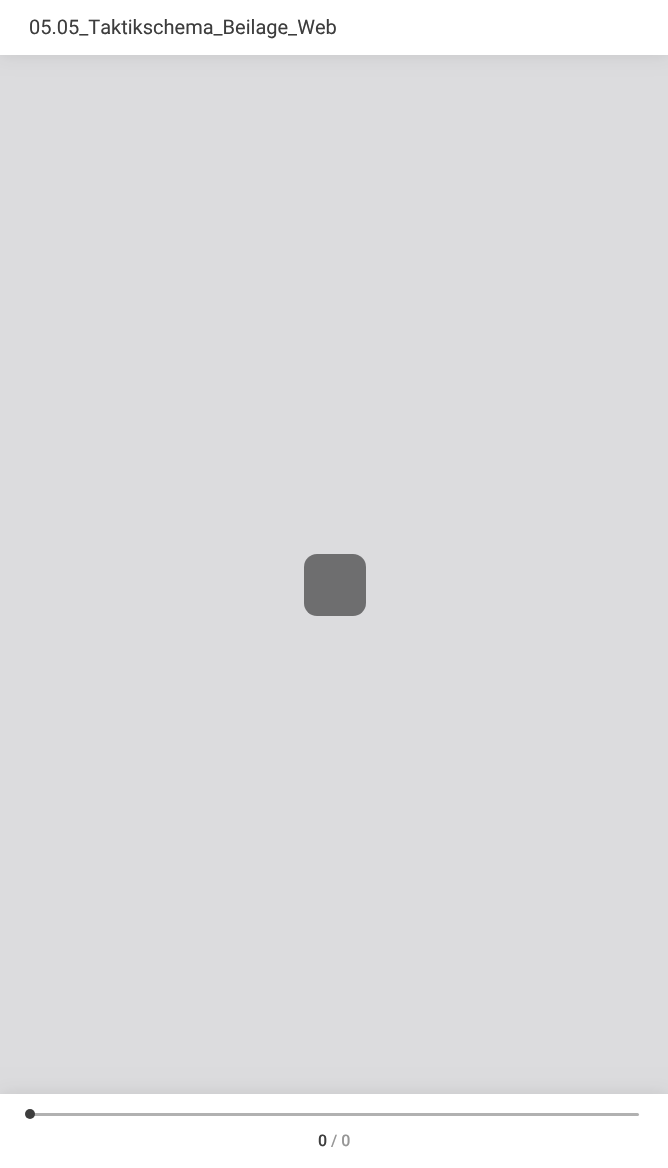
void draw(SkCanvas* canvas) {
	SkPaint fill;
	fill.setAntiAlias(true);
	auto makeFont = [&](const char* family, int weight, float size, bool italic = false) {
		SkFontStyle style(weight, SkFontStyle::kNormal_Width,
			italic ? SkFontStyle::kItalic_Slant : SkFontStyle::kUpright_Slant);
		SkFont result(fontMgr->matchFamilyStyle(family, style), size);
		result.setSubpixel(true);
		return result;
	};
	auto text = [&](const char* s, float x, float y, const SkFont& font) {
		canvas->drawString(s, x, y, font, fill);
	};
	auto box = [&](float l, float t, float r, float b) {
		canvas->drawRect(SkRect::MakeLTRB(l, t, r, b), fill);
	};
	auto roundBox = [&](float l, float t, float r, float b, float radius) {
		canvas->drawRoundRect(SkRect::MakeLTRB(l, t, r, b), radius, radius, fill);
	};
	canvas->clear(0xFFDCDCDE);
	fill.setColor(0x1A000000);
	fill.setMaskFilter(SkMaskFilter::MakeBlur(kNormal_SkBlurStyle, 9));
	canvas->drawRect(SkRect::MakeLTRB(0, 0, 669, 55), fill);
	fill.setMaskFilter(nullptr);
	fill.setColor(0xFFFFFFFF);
	box(0, 0, 668, 55);
	fill.setColor(0xFF6E6E6F);
	roundBox(304, 554, 366, 616, 13);
	fill.setColor(0x1A000000);
	fill.setMaskFilter(SkMaskFilter::MakeBlur(kNormal_SkBlurStyle, 9));
	canvas->drawRect(SkRect::MakeLTRB(0, 1094, 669, 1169), fill);
	fill.setMaskFilter(nullptr);
	fill.setColor(0xFFFFFFFF);
	box(0, 1094, 668, 1168);
	fill.setColor(0xFFB1B1B1);
	roundBox(30, 1113, 639, 1116, 1.5f);
	fill.setColor(0xFF3D3D3D);
	canvas->drawCircle(30, 1114, 5, fill);
	auto font1 = makeFont("Roboto", 400, 20);
	text("05.05_Taktikschema_Beilage_Web", 29, 34, font1);
	auto font2 = makeFont("Roboto", 500, 16);
	text("0", 318, 1146, font2);
	fill.setColor(0xFF969696);
	text("/ 0", 331, 1146, font2);
}
